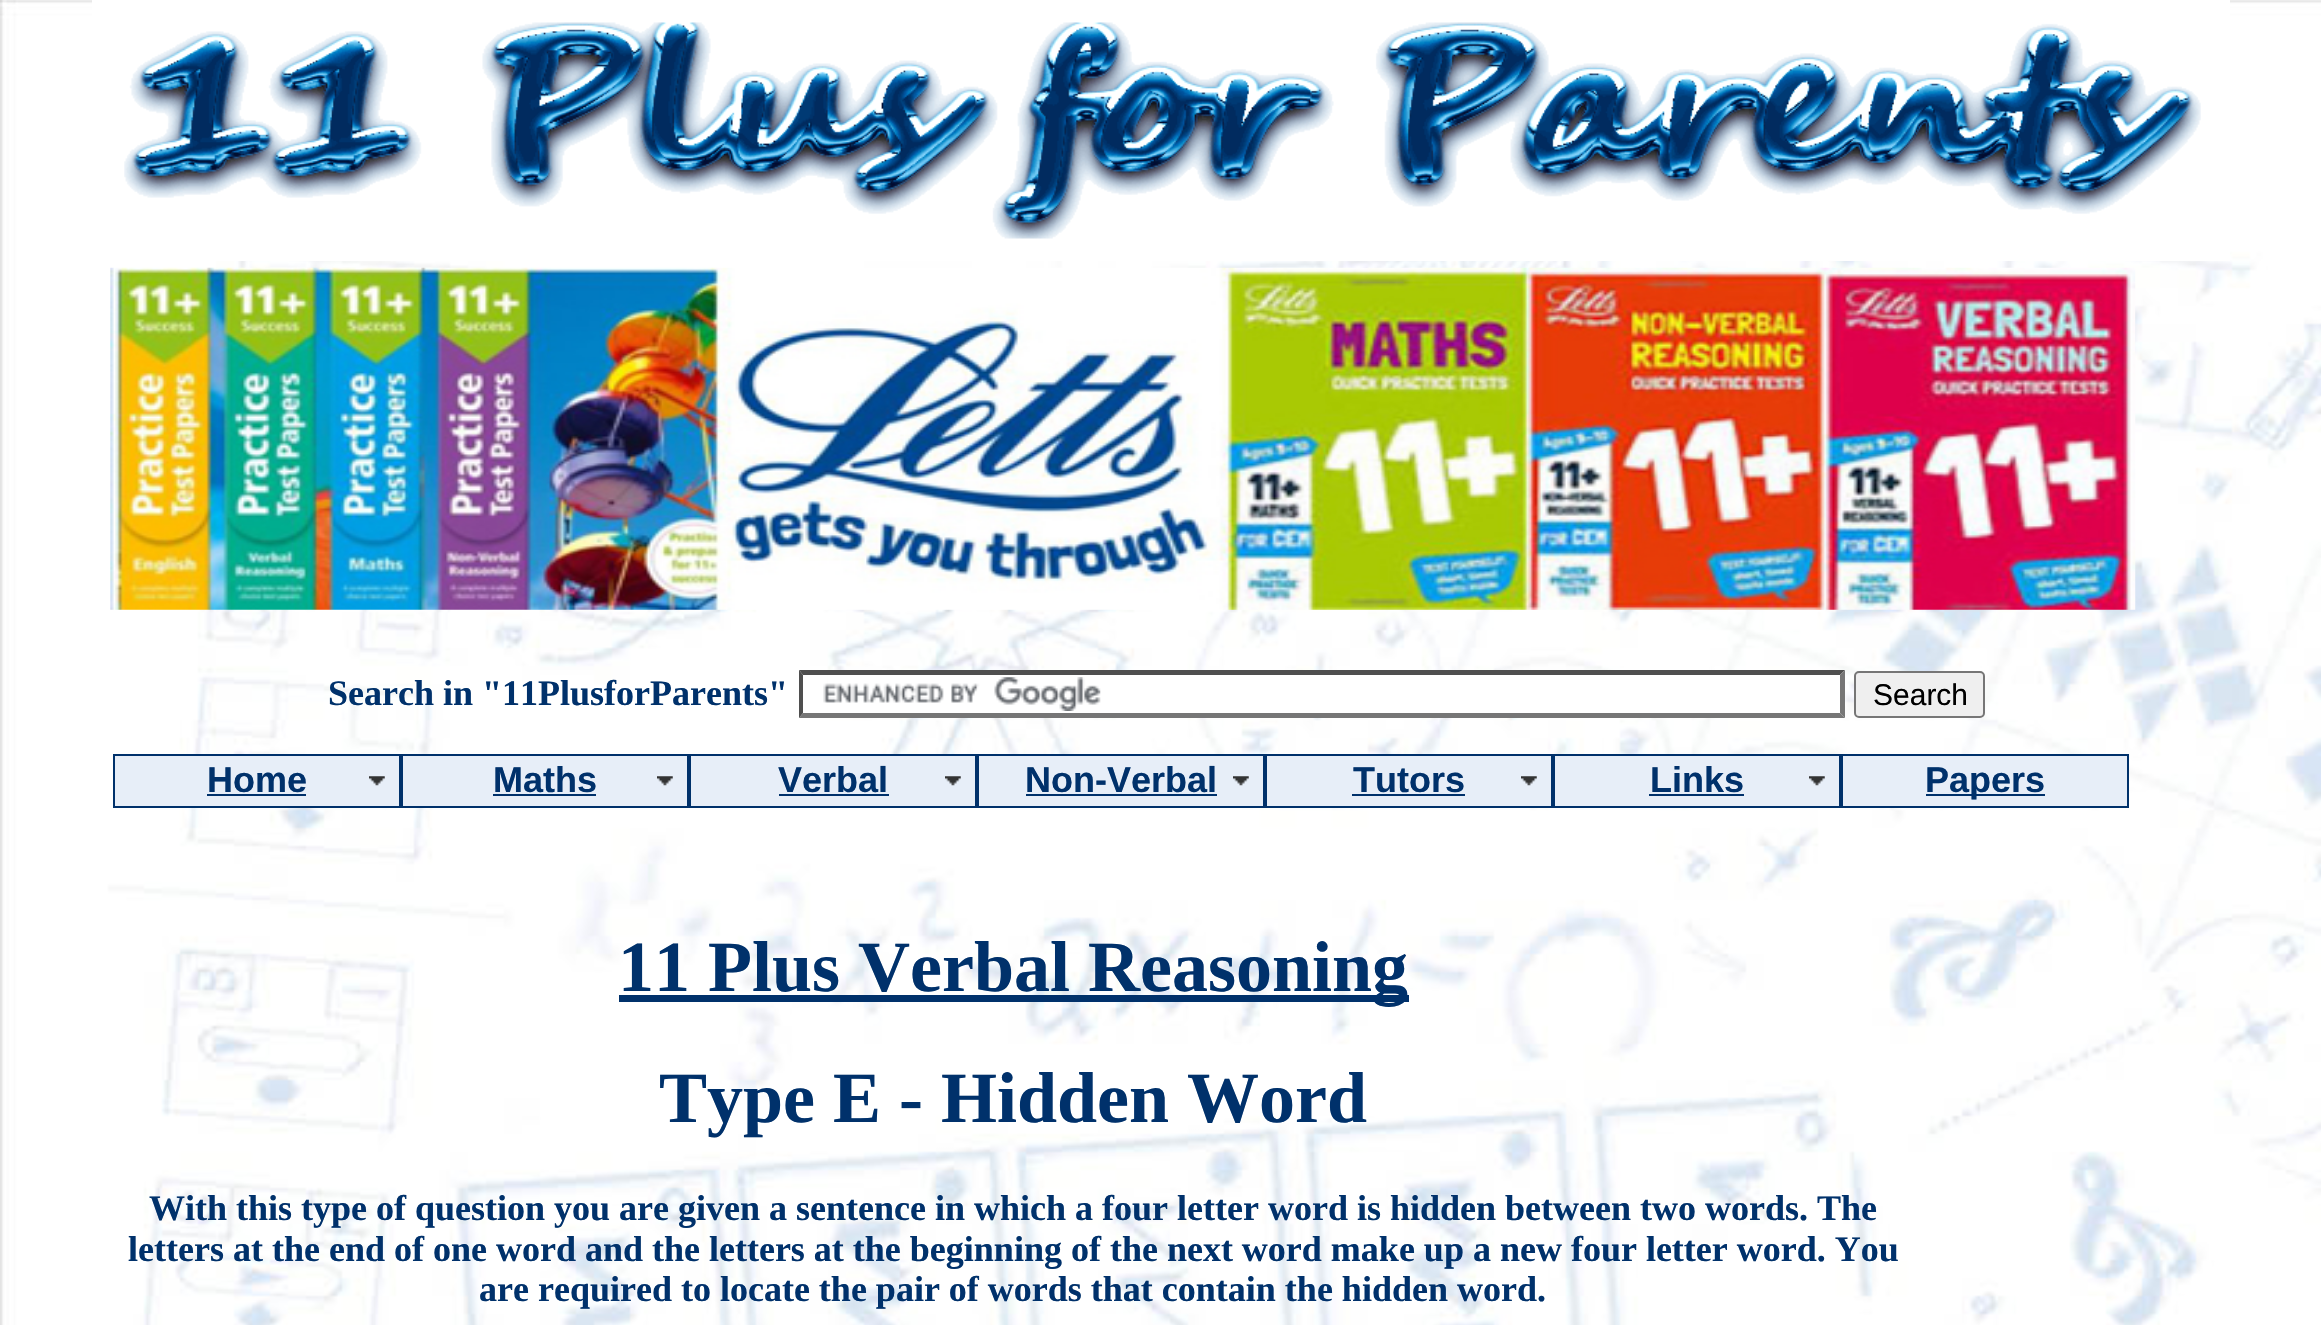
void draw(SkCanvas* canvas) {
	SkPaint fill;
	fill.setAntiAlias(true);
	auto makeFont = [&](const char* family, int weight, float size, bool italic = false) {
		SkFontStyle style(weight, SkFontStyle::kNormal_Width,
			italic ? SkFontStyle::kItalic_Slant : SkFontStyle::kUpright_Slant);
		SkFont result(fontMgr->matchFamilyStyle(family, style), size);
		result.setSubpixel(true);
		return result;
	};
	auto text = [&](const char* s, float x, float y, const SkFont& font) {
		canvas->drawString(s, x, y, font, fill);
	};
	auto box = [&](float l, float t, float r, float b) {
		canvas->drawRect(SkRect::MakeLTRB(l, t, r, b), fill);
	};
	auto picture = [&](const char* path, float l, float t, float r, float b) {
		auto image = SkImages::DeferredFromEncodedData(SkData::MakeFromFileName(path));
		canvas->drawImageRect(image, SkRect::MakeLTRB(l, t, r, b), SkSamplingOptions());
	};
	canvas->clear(0xFFFFFFFF);
	picture("image0.png", 0, 0, 2321, 1325);
	fill.setColor(0xFFFFFFFF);
	box(92, 0, 2230, 261);
	picture("image1.png", 124, 22, 2201, 239);
	picture("image2.png", 110, 267, 2136, 610);
	box(828, 671, 1845, 718);
	picture("image3.png", 823, 677, 1101, 711);
	fill.setColor(0xFF4F4F4F);
	canvas->drawPath(SkPathBuilder().moveTo(799, 670).lineTo(1845, 670).lineTo(1840, 675).lineTo(803, 675).close().detach(), fill);
	fill.setColor(0xFF767676);
	canvas->drawPath(SkPathBuilder().moveTo(1845, 670).lineTo(1845, 718).lineTo(1840, 713).lineTo(1840, 675).close().detach(), fill);
	canvas->drawPath(SkPathBuilder().moveTo(1845, 718).lineTo(799, 718).lineTo(803, 713).lineTo(1840, 713).close().detach(), fill);
	fill.setColor(0xFF4F4F4F);
	canvas->drawPath(SkPathBuilder().moveTo(799, 718).lineTo(799, 670).lineTo(803, 675).lineTo(803, 713).close().detach(), fill);
	fill.setColor(0xFFEFEFEF);
	canvas->drawRoundRect(SkRect::MakeLTRB(1855, 672, 1984, 717), 4, 4, fill);
	fill.setStyle(SkPaint::kStroke_Style);
	fill.setStrokeWidth(2);
	fill.setColor(0xFF767676);
	canvas->drawRoundRect(SkRect::MakeLTRB(1855, 672, 1984, 717), 4, 4, fill);
	fill.setStyle(SkPaint::kFill_Style);
	fill.setColor(0xFFE7EEF8);
	box(115, 756, 399, 806);
	picture("image4.png", 369, 776, 385, 786);
	fill.setStyle(SkPaint::kStroke_Style);
	fill.setColor(0xFF00316B);
	canvas->drawRect(SkRect::MakeLTRB(114, 755, 400, 807), fill);
	fill.setStyle(SkPaint::kFill_Style);
	box(207, 794, 306, 796);
	fill.setColor(0xFFE7EEF8);
	box(403, 756, 687, 806);
	picture("image4.png", 657, 776, 673, 786);
	fill.setStyle(SkPaint::kStroke_Style);
	fill.setColor(0xFF00316B);
	canvas->drawRect(SkRect::MakeLTRB(402, 755, 688, 807), fill);
	fill.setStyle(SkPaint::kFill_Style);
	box(493, 794, 596, 796);
	fill.setColor(0xFFE7EEF8);
	box(691, 756, 975, 806);
	picture("image4.png", 945, 776, 961, 786);
	fill.setStyle(SkPaint::kStroke_Style);
	fill.setColor(0xFF00316B);
	canvas->drawRect(SkRect::MakeLTRB(690, 755, 976, 807), fill);
	fill.setStyle(SkPaint::kFill_Style);
	box(779, 794, 889, 796);
	fill.setColor(0xFFE7EEF8);
	box(979, 756, 1263, 806);
	picture("image4.png", 1233, 776, 1249, 786);
	fill.setStyle(SkPaint::kStroke_Style);
	fill.setColor(0xFF00316B);
	canvas->drawRect(SkRect::MakeLTRB(978, 755, 1264, 807), fill);
	fill.setStyle(SkPaint::kFill_Style);
	box(1026, 794, 1217, 796);
	fill.setColor(0xFFE7EEF8);
	box(1267, 756, 1551, 806);
	picture("image5.png", 1521, 776, 1537, 786);
	fill.setStyle(SkPaint::kStroke_Style);
	fill.setColor(0xFF00316B);
	canvas->drawRect(SkRect::MakeLTRB(1266, 755, 1552, 807), fill);
	fill.setStyle(SkPaint::kFill_Style);
	box(1352, 794, 1465, 796);
	fill.setColor(0xFFE7EEF8);
	box(1555, 756, 1839, 806);
	picture("image5.png", 1809, 776, 1825, 786);
	fill.setStyle(SkPaint::kStroke_Style);
	fill.setColor(0xFF00316B);
	canvas->drawRect(SkRect::MakeLTRB(1554, 755, 1840, 807), fill);
	fill.setStyle(SkPaint::kFill_Style);
	box(1649, 794, 1744, 796);
	fill.setColor(0xFFE7EEF8);
	canvas->drawRect(SkRect::MakeLTRB(1842, 755, 2128, 807), fill);
	fill.setStyle(SkPaint::kStroke_Style);
	fill.setColor(0xFF00316B);
	canvas->drawRect(SkRect::MakeLTRB(1842, 755, 2128, 807), fill);
	fill.setStyle(SkPaint::kFill_Style);
	box(1926, 794, 2045, 796);
	box(619, 995, 1409, 1002);
	auto font1 = makeFont("Liberation Serif", 700, 36);
	text("Search in \"11PlusforParents\"", 328, 705, font1);
	auto font2 = makeFont("Liberation Sans", 400, 30);
	fill.setColor(0xFF000000);
	text("Search", 1873, 705, font2);
	auto font3 = makeFont("Liberation Sans", 700, 36);
	fill.setColor(0xFF00316B);
	text("Home", 207, 792, font3);
	text("Maths", 493, 792, font3);
	text("Verbal", 778, 792, font3);
	text("Non-Verbal", 1025, 792, font3);
	text("Tutors", 1353, 792, font3);
	text("Links", 1650, 792, font3);
	text("Papers", 1925, 792, font3);
	auto font4 = makeFont("Liberation Serif", 700, 72);
	text("11 Plus Verbal Reasoning", 618, 991, font4);
	text("Type E - Hidden Word", 659, 1122, font4);
	text("With this type of question you are given a sentence in which a four letter word is hidden between two words. The", 149, 1220, font1);
	text("letters at the end of one word and the letters at the beginning of the next word make up a new four letter word. You", 128, 1261, font1);
	text("are required to locate the pair of words that contain the hidden word.", 479, 1301, font1);
}
